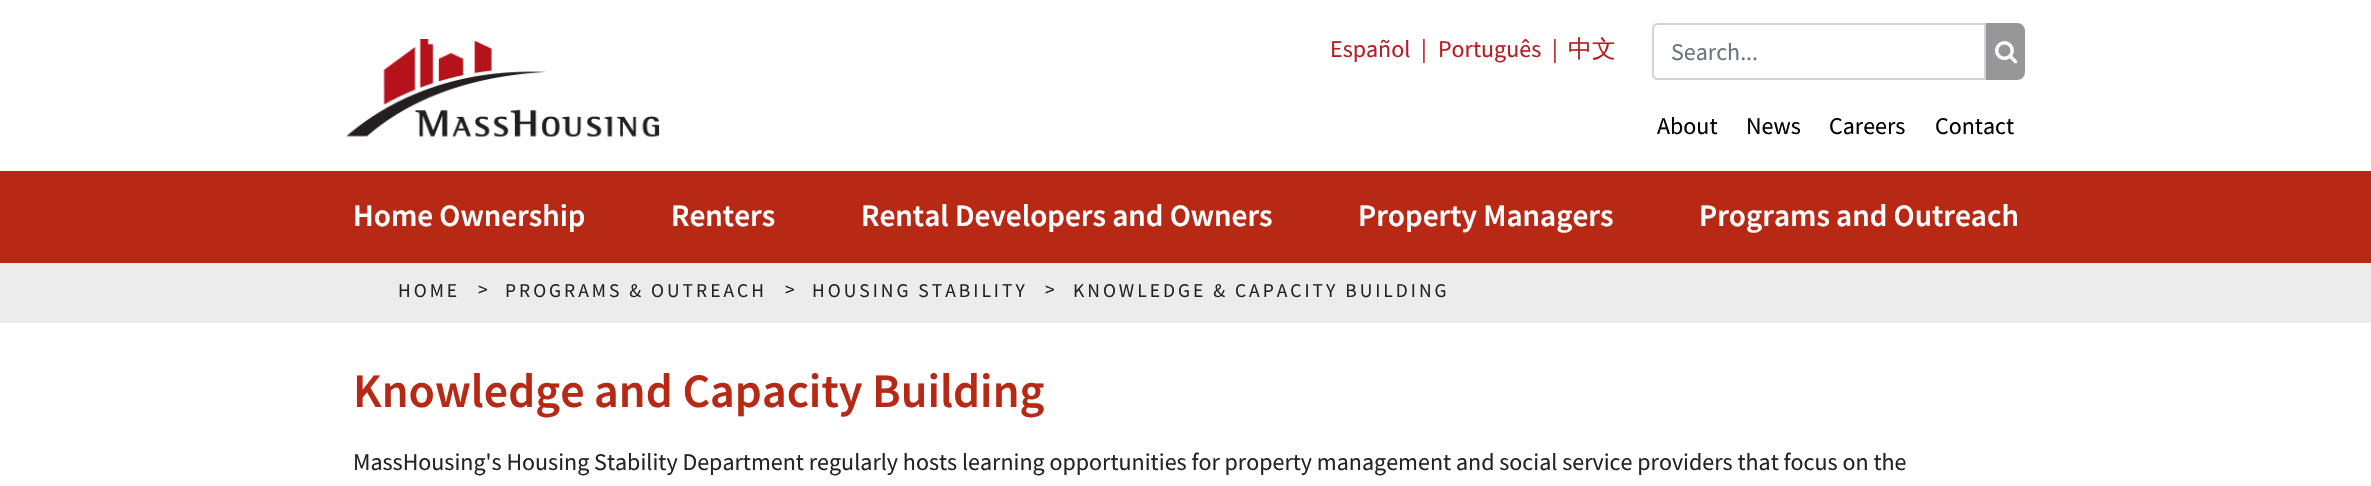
void draw(SkCanvas* canvas) {
	SkPaint fill;
	fill.setAntiAlias(true);
	auto makeFont = [&](const char* family, int weight, float size, bool italic = false) {
		SkFontStyle style(weight, SkFontStyle::kNormal_Width,
			italic ? SkFontStyle::kItalic_Slant : SkFontStyle::kUpright_Slant);
		SkFont result(fontMgr->matchFamilyStyle(family, style), size);
		result.setSubpixel(true);
		return result;
	};
	auto text = [&](const char* s, float x, float y, const SkFont& font) {
		canvas->drawString(s, x, y, font, fill);
	};
	auto spacedText = [&](const char* s, float x, float y, const SkFont& font, const SkPaint& ink, float letter, float word) {
		std::vector<SkGlyphID> glyphs(font.countText(s, strlen(s), SkTextEncoding::kUTF8));
		std::vector<float> xs(glyphs.size());
		font.textToGlyphs(s, strlen(s), SkTextEncoding::kUTF8, glyphs);
		font.getXPos(glyphs, xs, x);
		float extra = 0;
		for (size_t i = 0; i < glyphs.size(); i++) {
			xs[i] += extra;
			extra += letter + word * (glyphs[i] == font.unicharToGlyph(' '));
		}
		canvas->drawTextBlob(SkTextBlob::MakeFromPosHGlyphs(glyphs, xs, y, font), 0, 0, ink);
	};
	auto box = [&](float l, float t, float r, float b) {
		canvas->drawRect(SkRect::MakeLTRB(l, t, r, b), fill);
	};
	auto picture = [&](const char* path, float l, float t, float r, float b) {
		auto image = SkImages::DeferredFromEncodedData(SkData::MakeFromFileName(path));
		canvas->drawImageRect(image, SkRect::MakeLTRB(l, t, r, b), SkSamplingOptions());
	};
	canvas->clear(0xFFFFFFFF);
	fill.setStyle(SkPaint::kStroke_Style);
	fill.setStrokeWidth(2);
	fill.setColor(0xFFCED4DA);
	canvas->drawPath(SkPathBuilder().moveTo(1658, 24).lineTo(1985, 24).lineTo(1985, 79).lineTo(1658, 79).cubicTo(1655, 79, 1653, 77, 1653, 74).lineTo(1653, 29).cubicTo(1653, 26, 1655, 24, 1658, 24).close().detach(), fill);
	fill.setStyle(SkPaint::kFill_Style);
	fill.setColor(0xFF979797);
	canvas->drawPath(SkPathBuilder().moveTo(1986, 23).lineTo(2017, 23).cubicTo(2021.5f, 23, 2025, 26.5f, 2025, 31).lineTo(2025, 72).cubicTo(2025, 76.5f, 2021.5f, 80, 2017, 80).lineTo(1986, 80).close().detach(), fill);
	picture("image0.png", 1995, 41, 2018, 64);
	fill.setColor(0xFFB72815);
	box(0, 171, 2371, 263);
	picture("image1.png", 346, 39, 660, 137);
	fill.setColor(0xFFECECEC);
	box(0, 263, 2371, 323);
	auto font1 = makeFont("Source Sans Pro", 400, 24);
	fill.setColor(0xFFB41F24);
	text("Español", 1330, 57, font1);
	text("|", 1421, 57, font1);
	text("Português", 1438, 57, font1);
	text("|", 1552, 57, font1);
	auto font2 = makeFont("WenQuanYi Zen Hei", 500, 24);
	text("中文", 1568, 57, font2);
	fill.setColor(0xFF6C757D);
	text("Search...", 1671, 60, font1);
	fill.setColor(0xFF000000);
	text("About", 1657, 134, font1);
	text("News", 1746, 134, font1);
	text("Careers", 1829, 134, font1);
	text("Contact", 1935, 134, font1);
	auto font3 = makeFont("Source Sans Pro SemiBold", 600, 31.25f);
	fill.setColor(0xFFFFFFFF);
	text("Home Ownership", 353, 226, font3);
	text("Renters", 671, 226, font3);
	text("Rental Developers and Owners", 861, 226, font3);
	text("Property Managers", 1358, 226, font3);
	text("Programs and Outreach", 1699, 226, font3);
	auto font4 = makeFont("Source Sans Pro", 400, 19.5f);
	fill.setColor(0xFF212529);
	spacedText("HOME", 398, 297, font4, fill, 3, 0);
	spacedText(">", 478, 296, font4, fill, 3, 0);
	spacedText("PROGRAMS & OUTREACH", 505, 297, font4, fill, 3, 0);
	spacedText(">", 785, 296, font4, fill, 3, 0);
	spacedText("HOUSING STABILITY", 812, 297, font4, fill, 3, 0);
	spacedText(">", 1045, 296, font4, fill, 3, 0);
	spacedText("KNOWLEDGE & CAPACITY BUILDING", 1073, 297, font4, fill, 3, 0);
	auto font5 = makeFont("Source Sans Pro SemiBold", 600, 48);
	fill.setColor(0xFFB72815);
	text("Knowledge and Capacity Building", 353, 407, font5);
	fill.setColor(0xFF212529);
	text("MassHousing's Housing Stability Department regularly hosts learning opportunities for property management and social service providers that focus on the", 353, 470, font1);
}
